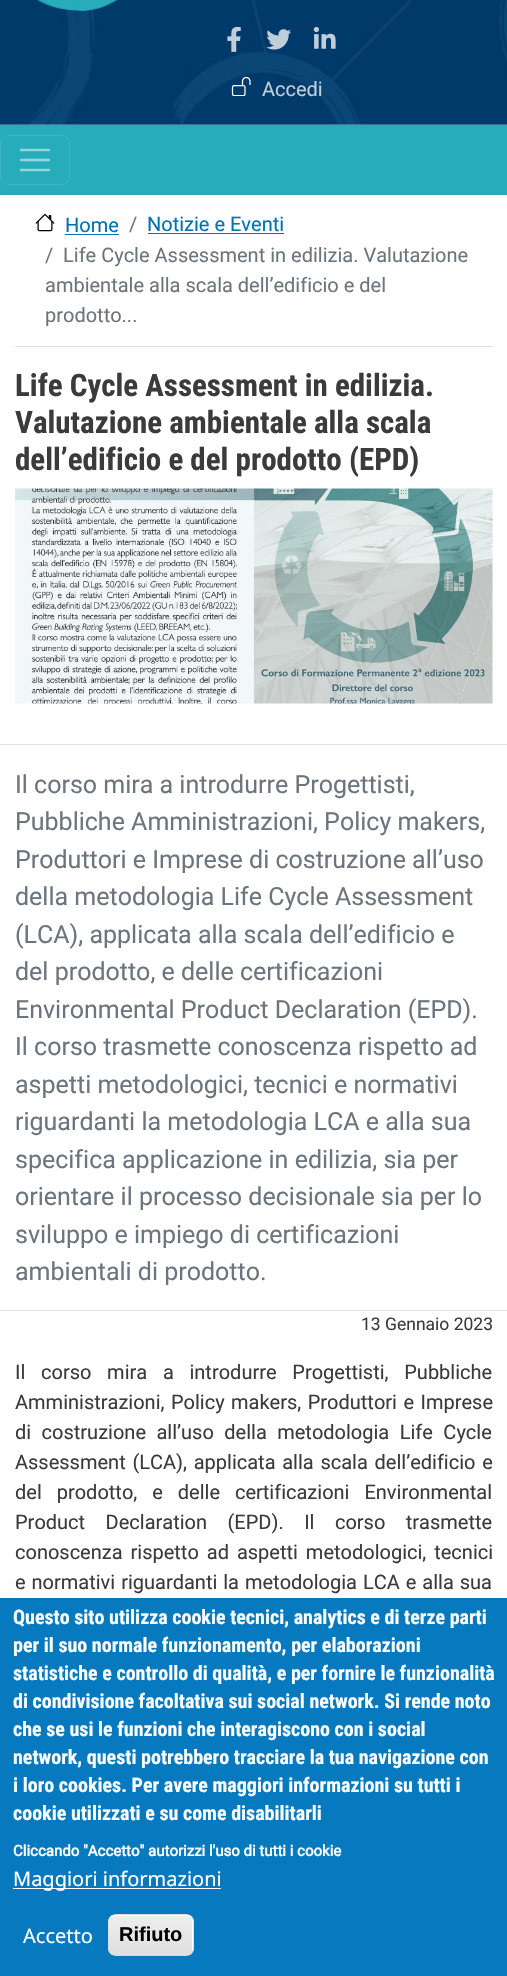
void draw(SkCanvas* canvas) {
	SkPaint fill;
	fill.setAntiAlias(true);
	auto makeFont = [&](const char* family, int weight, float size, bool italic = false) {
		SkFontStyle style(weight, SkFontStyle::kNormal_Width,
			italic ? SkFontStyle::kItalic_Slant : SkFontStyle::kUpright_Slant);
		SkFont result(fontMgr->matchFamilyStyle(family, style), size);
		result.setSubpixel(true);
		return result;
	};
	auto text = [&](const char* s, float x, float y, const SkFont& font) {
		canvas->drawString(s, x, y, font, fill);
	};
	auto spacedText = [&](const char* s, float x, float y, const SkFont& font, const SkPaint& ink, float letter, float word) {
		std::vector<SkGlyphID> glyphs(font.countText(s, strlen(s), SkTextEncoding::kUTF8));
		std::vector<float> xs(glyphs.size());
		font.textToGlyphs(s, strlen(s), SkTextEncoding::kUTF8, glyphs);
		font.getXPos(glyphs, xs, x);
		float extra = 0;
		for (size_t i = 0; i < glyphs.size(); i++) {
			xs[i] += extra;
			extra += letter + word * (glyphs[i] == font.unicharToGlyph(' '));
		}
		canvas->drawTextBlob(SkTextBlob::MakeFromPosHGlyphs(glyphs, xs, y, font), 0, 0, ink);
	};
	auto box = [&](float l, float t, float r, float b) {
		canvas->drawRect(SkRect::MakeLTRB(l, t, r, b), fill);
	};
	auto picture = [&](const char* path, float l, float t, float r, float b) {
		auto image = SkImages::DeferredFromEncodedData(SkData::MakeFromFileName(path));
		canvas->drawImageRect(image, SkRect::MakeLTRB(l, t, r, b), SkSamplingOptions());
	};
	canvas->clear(0xFFFFFFFF);
	picture("image0.png", 0, 0, 507, 125);
	picture("image1.png", 37, 0, 118, 11);
	picture("image2.png", 227, 26, 241, 52);
	picture("image3.png", 266, 29, 291, 50);
	picture("image4.png", 313, 26, 336, 49);
	picture("image5.png", 231, 76, 251, 96);
	fill.setColor(0xFF27ACBA);
	box(0, 125, 507, 195);
	fill.setStyle(SkPaint::kStroke_Style);
	fill.setStrokeWidth(1);
	fill.setColor(0xFF3DB4C1);
	canvas->drawRoundRect(SkRect::MakeLTRB(0.5f, 135.5f, 69.5f, 184.5f), 7.5f, 7.5f, fill);
	fill.setStrokeWidth(2.5f);
	fill.setStrokeCap(SkPaint::kRound_Cap);
	fill.setColor(0xFF93D6DD);
	canvas->drawPath(SkPathBuilder().moveTo(21, 150).lineTo(49, 150).moveTo(21, 160).lineTo(49, 160).moveTo(21, 170).lineTo(49, 170).detach(), fill);
	fill.setStyle(SkPaint::kFill_Style);
	fill.setColor(0xFFDEE2E6);
	box(15, 346, 493, 347);
	picture("image6.png", 35, 214, 55, 232);
	fill.setColor(0xFF0071B3);
	box(65, 234, 119, 235);
	box(148, 233, 284, 234);
	picture("image7.png", 15, 488, 493, 704);
	fill.setColor(0xFFDEE2E6);
	box(0, 744, 507, 745);
	box(0, 1310, 507, 1311);
	fill.setColor(0xFF0779BF);
	box(0, 1598, 507, 1976);
	fill.setColor(0xFFFFFFFF);
	box(13, 1888, 221, 1889);
	canvas->save();
	canvas->clipPath(SkPathBuilder().moveTo(116, 1914).lineTo(186, 1914).cubicTo(190.5f, 1914, 194, 1917.5f, 194, 1922).lineTo(194, 1948).cubicTo(194, 1952.5f, 190.5f, 1956, 186, 1956).lineTo(116, 1956).cubicTo(111.5f, 1956, 108, 1952.5f, 108, 1948).lineTo(108, 1922).cubicTo(108, 1917.5f, 111.5f, 1914, 116, 1914).close().detach(), true);
	{
		const SkColor colors[] = {0xFFEDEDED, 0xFFDFDFDF};
		const float stops[] = {0.05f, 1};
		const SkPoint ends[] = {{151, 1915}, {151, 1955}};
		fill.setShader(SkGradientShader::MakeLinear(ends, colors, stops, 2, SkTileMode::kClamp));
		fill.setAlpha(255);
	}
	box(108, 1915, 194, 1955);
	canvas->restore();
	fill.setShader(nullptr);
	fill.setColor(0xFFFFFFFF);
	canvas->drawPath(SkPathBuilder().moveTo(115, 1916).lineTo(186, 1916).cubicTo(190, 1916, 192, 1919, 192, 1922).lineTo(192, 1950).cubicTo(192, 1951, 192, 1952, 191, 1953).cubicTo(192, 1952, 193, 1951, 193, 1949).lineTo(193, 1921).cubicTo(193, 1918, 190, 1915, 187, 1915).lineTo(115, 1915).cubicTo(112, 1915, 109, 1918, 109, 1921).lineTo(109, 1922).cubicTo(109, 1919, 112, 1916, 115, 1916).close().detach(), fill);
	fill.setStyle(SkPaint::kStroke_Style);
	fill.setStrokeWidth(1);
	fill.setStrokeCap(SkPaint::kButt_Cap);
	fill.setColor(0xFFDCDCDC);
	canvas->drawRoundRect(SkRect::MakeLTRB(108.5f, 1914.5f, 193.5f, 1955.5f), 7.5f, 7.5f, fill);
	auto font1 = makeFont("Roboto", 400, 20);
	fill.setStyle(SkPaint::kFill_Style);
	fill.setColor(0xFFC0CEDA);
	text("Accedi", 262, 96, font1);
	fill.setColor(0xFF0071B3);
	text("Home", 65, 232, font1);
	fill.setColor(0xFF6C757D);
	text("/", 129, 231, font1);
	fill.setColor(0xFF0071B3);
	text("Notizie e Eventi", 147, 231, font1);
	fill.setColor(0xFF6C757D);
	text("/", 45, 262, font1);
	text("Life Cycle Assessment in edilizia. Valutazione", 63, 262, font1);
	text("ambientale alla scala dell’edificio e del", 45, 292, font1);
	text("prodotto...", 45, 322, font1);
	auto font2 = makeFont("Roboto Condensed", 700, 31);
	fill.setColor(0xFF3B3B3B);
	text("Life Cycle Assessment in edilizia.", 15, 396, font2);
	text("Valutazione ambientale alla scala", 15, 433, font2);
	text("dell’edificio e del prodotto (EPD)", 15, 470, font2);
	auto font3 = makeFont("Roboto", 400, 25);
	fill.setColor(0xFF6C757D);
	text("Il corso mira a introdurre Progettisti,", 15, 793, font3);
	text("Pubbliche Amministrazioni, Policy makers,", 15, 830, font3);
	text("Produttori e Imprese di costruzione all’uso", 15, 868, font3);
	text("della metodologia Life Cycle Assessment", 15, 905, font3);
	text("(LCA), applicata alla scala dell’edificio e", 15, 943, font3);
	text("del prodotto, e delle certificazioni", 15, 980, font3);
	text("Environmental Product Declaration (EPD).", 15, 1018, font3);
	text("Il corso trasmette conoscenza rispetto ad", 15, 1055, font3);
	text("aspetti metodologici, tecnici e normativi", 15, 1093, font3);
	text("riguardanti la metodologia LCA e alla sua", 15, 1130, font3);
	text("specifica applicazione in edilizia, sia per", 15, 1168, font3);
	text("orientare il processo decisionale sia per lo", 15, 1205, font3);
	text("sviluppo e impiego di certificazioni", 15, 1243, font3);
	text("ambientali di prodotto.", 15, 1280, font3);
	auto font4 = makeFont("Roboto", 400, 17.5f);
	fill.setColor(0xFF3B3B3B);
	text("13 Gennaio 2023", 361, 1330, font4);
	spacedText("Il corso mira a introdurre Progettisti, Pubbliche", 15, 1379, font1, fill, 0, 10.75f);
	spacedText("Amministrazioni, Policy makers, Produttori e Imprese", 15, 1409, font1, fill, 0, 1.5f);
	spacedText("di costruzione all’uso della metodologia Life Cycle", 15, 1439, font1, fill, 0, 5.5f);
	spacedText("Assessment (LCA), applicata alla scala dell’edificio e", 15, 1469, font1, fill, 0, 1.75f);
	spacedText("del prodotto, e delle certificazioni Environmental", 15, 1499, font1, fill, 0, 10);
	spacedText("Product Declaration (EPD). Il corso trasmette", 15, 1529, font1, fill, 0, 15.5f);
	spacedText("conoscenza rispetto ad aspetti metodologici, tecnici", 15, 1559, font1, fill, 0, 3);
	spacedText("e normativi riguardanti la metodologia LCA e alla sua", 15, 1589, font1, fill, 0, 1);
	auto font5 = makeFont("Roboto Condensed", 700, 20);
	fill.setColor(0xFFFFFFFF);
	text("Questo sito utilizza cookie tecnici, analytics e di terze parti", 13, 1624, font5);
	text("per il suo normale funzionamento, per elaborazioni", 13, 1652, font5);
	text("statistiche e controllo di qualità, e per fornire le funzionalità", 13, 1680, font5);
	text("di condivisione facoltativa sui social network. Si rende noto", 13, 1708, font5);
	text("che se usi le funzioni che interagiscono con i social", 13, 1736, font5);
	text("network, questi potrebbero tracciare la tua navigazione con", 13, 1764, font5);
	text("i loro cookies. Per avere maggiori informazioni su tutti i", 13, 1792, font5);
	text("cookie utilizzati e su come disabilitarli", 13, 1820, font5);
	auto font6 = makeFont("Roboto", 700, 15);
	text("Cliccando \"Accetto\" autorizzi l'uso di tutti i cookie", 13, 1856, font6);
	auto font7 = makeFont("Noto Sans", 400, 20);
	text("Maggiori informazioni", 13, 1886, font7);
	text("Accetto", 23, 1943, font7);
	auto font8 = makeFont("Liberation Sans", 700, 20);
	fill.setColor(0xFF000000);
	text("Rifiuto", 119, 1941, font8);
}
